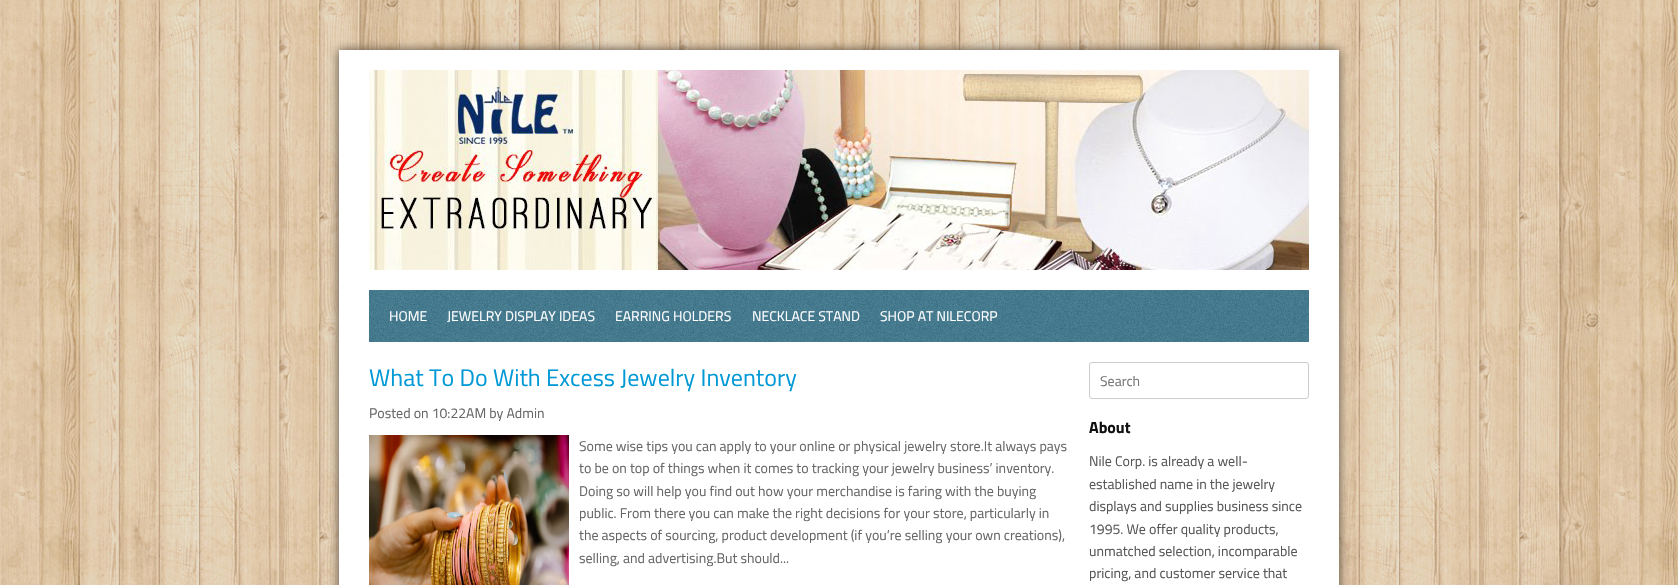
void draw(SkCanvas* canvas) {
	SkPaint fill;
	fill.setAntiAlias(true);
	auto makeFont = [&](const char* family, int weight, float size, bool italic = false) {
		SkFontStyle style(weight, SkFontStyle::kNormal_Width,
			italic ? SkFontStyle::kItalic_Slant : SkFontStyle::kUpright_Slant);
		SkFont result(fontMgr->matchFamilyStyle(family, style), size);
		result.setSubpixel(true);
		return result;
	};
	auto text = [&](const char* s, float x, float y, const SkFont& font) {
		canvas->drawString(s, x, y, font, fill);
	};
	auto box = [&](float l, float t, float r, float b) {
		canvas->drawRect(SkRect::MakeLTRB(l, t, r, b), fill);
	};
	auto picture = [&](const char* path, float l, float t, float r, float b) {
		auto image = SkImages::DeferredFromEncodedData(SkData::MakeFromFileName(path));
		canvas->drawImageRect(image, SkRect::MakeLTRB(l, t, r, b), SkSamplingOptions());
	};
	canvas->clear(0xFFFFFFFF);
	picture("image0.png", 0, 0, 1678, 585);
	fill.setColor(0xFF564A3E);
	fill.setMaskFilter(SkMaskFilter::MakeBlur(kNormal_SkBlurStyle, 5));
	canvas->drawRect(SkRect::MakeLTRB(339, 50, 1339, 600), fill);
	fill.setMaskFilter(nullptr);
	fill.setColor(0xFFFFFFFF);
	box(339, 50, 1339, 585);
	picture("image1.png", 369, 70, 1309, 270);
	picture("image2.png", 369, 290, 1309, 342);
	picture("image3.png", 369, 435, 569, 585);
	fill.setStyle(SkPaint::kStroke_Style);
	fill.setStrokeWidth(1);
	fill.setColor(0xFFCCCCCC);
	canvas->drawRoundRect(SkRect::MakeLTRB(1089.5f, 362.5f, 1308.5f, 398.5f), 2.5f, 2.5f, fill);
	auto font1 = makeFont("Titillium Web", 400, 14);
	fill.setStyle(SkPaint::kFill_Style);
	fill.setColor(0xFFFFFFFF);
	text("HOME", 389, 321, font1);
	text("JEWELRY DISPLAY IDEAS", 447, 321, font1);
	text("EARRING HOLDERS", 615, 321, font1);
	text("NECKLACE STAND", 752, 321, font1);
	text("SHOP AT NILECORP", 880, 321, font1);
	auto font2 = makeFont("Titillium Web", 400, 24);
	fill.setColor(0xFF0099D6);
	text("What To Do With Excess Jewelry Inventory", 369, 386, font2);
	fill.setColor(0xFF666666);
	text("Posted on 10:22 AM by Admin", 369, 418, font1);
	text("Some wise tips you can apply to your online or physical jewelry store.It always pays", 579, 451, font1);
	text("to be on top of things when it comes to tracking your jewelry business’ inventory.", 579, 473, font1);
	text("Doing so will help you find out how your merchandise is faring with the buying", 579, 496, font1);
	text("public. From there you can make the right decisions for your store, particularly in", 579, 518, font1);
	text("the aspects of sourcing, product development (if you’re selling your own creations),", 579, 540, font1);
	text("selling, and advertising.But should...", 579, 563, font1);
	fill.setColor(0xFF757575);
	text("Search", 1100, 386, font1);
	auto font3 = makeFont("Titillium Web", 700, 16);
	fill.setColor(0xFF111111);
	text("About", 1089, 433, font3);
	fill.setColor(0xFF555555);
	text("Nile Corp. is already a well-", 1089, 466, font1);
	text("established name in the jewelry", 1089, 489, font1);
	text("displays and supplies business since", 1089, 511, font1);
	text("1995. We offer quality products,", 1089, 534, font1);
	text("unmatched selection, incomparable", 1089, 556, font1);
	text("pricing, and customer service that", 1089, 578, font1);
}
